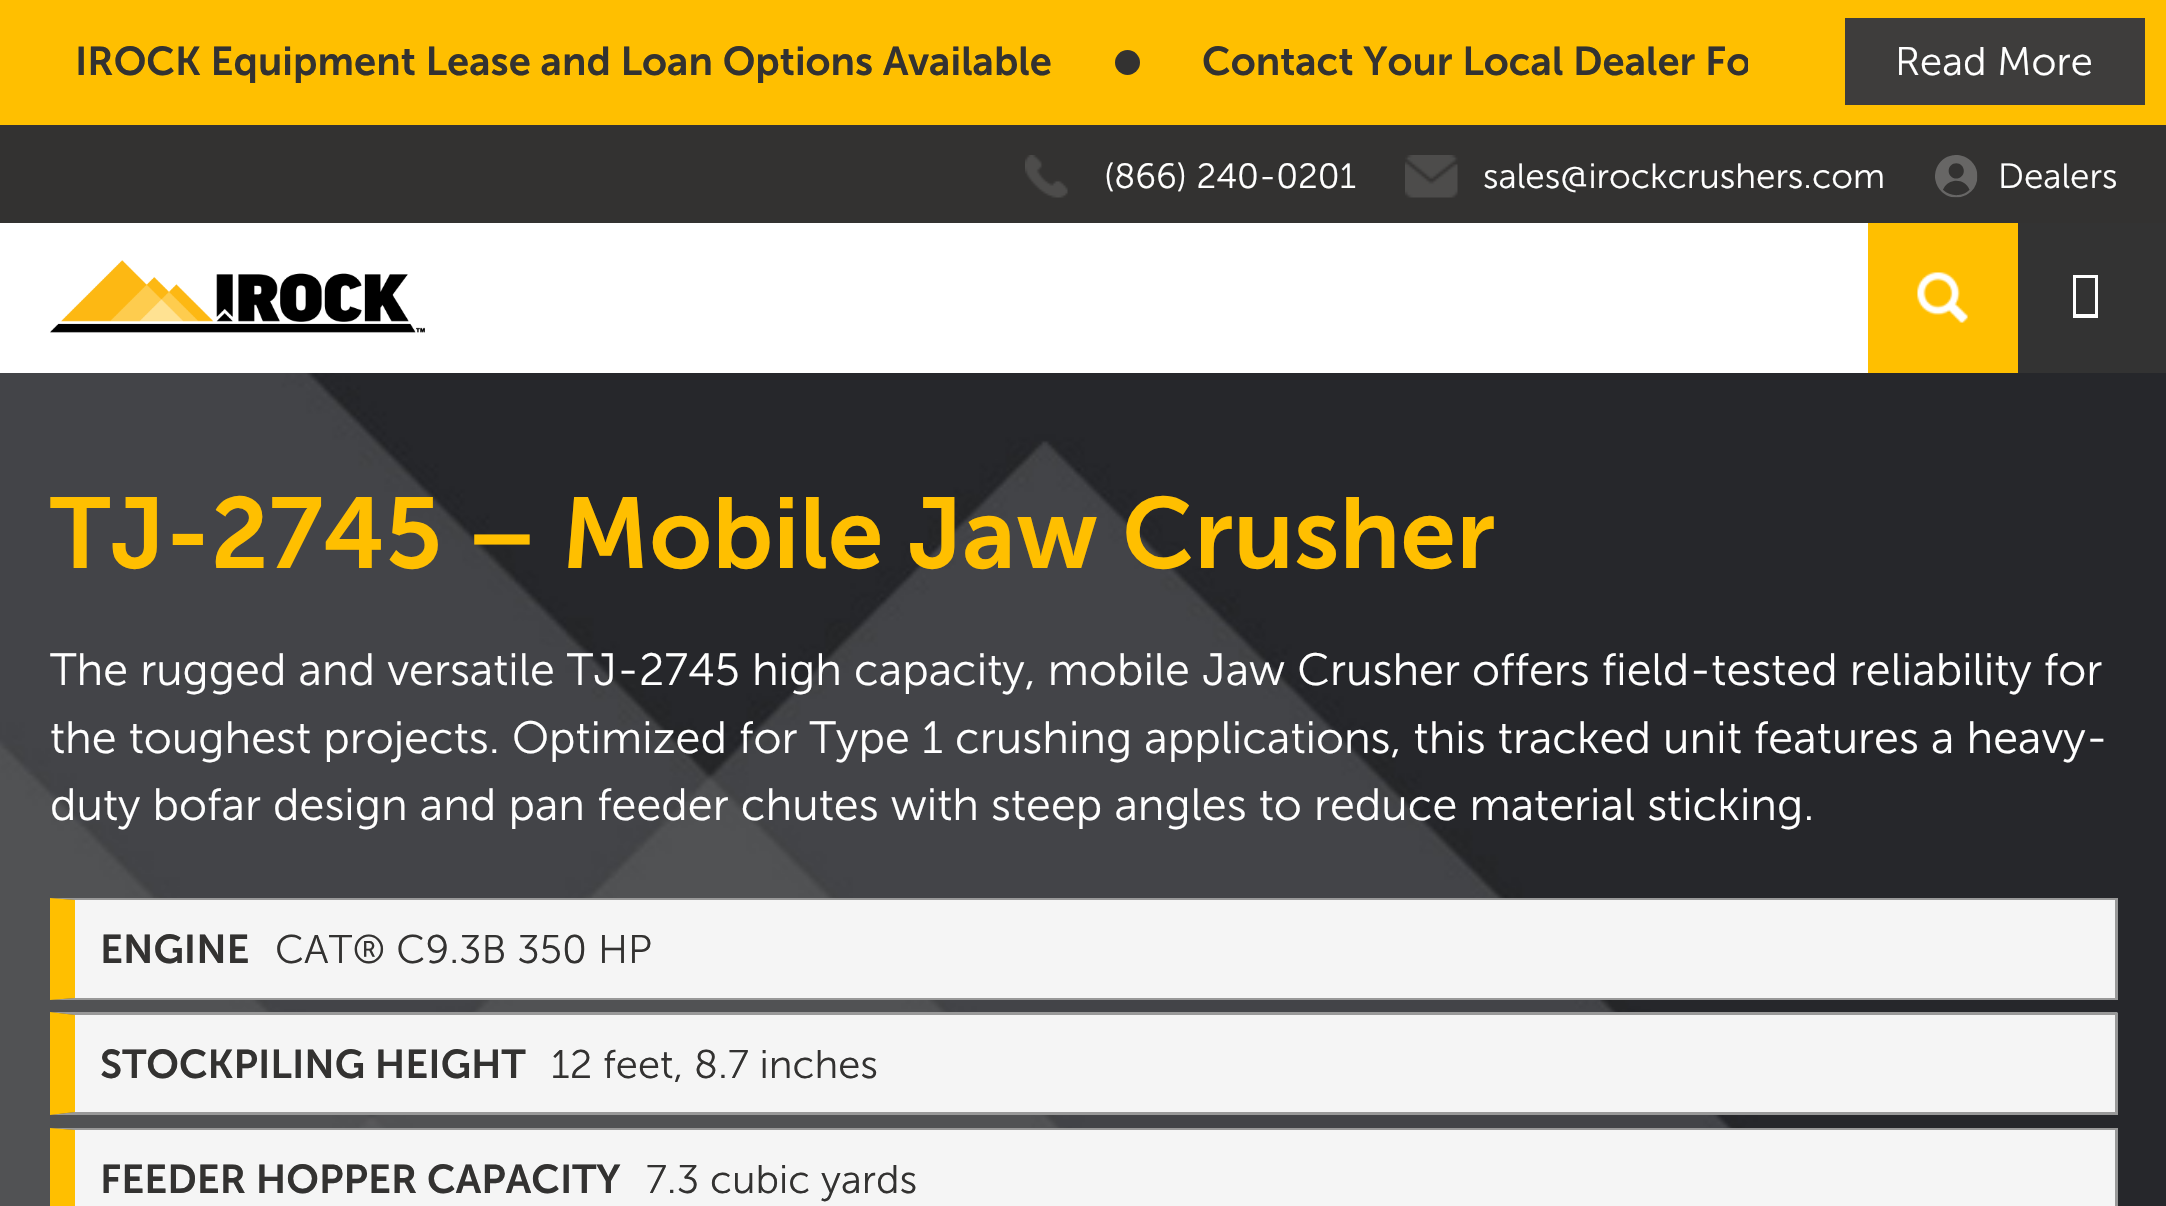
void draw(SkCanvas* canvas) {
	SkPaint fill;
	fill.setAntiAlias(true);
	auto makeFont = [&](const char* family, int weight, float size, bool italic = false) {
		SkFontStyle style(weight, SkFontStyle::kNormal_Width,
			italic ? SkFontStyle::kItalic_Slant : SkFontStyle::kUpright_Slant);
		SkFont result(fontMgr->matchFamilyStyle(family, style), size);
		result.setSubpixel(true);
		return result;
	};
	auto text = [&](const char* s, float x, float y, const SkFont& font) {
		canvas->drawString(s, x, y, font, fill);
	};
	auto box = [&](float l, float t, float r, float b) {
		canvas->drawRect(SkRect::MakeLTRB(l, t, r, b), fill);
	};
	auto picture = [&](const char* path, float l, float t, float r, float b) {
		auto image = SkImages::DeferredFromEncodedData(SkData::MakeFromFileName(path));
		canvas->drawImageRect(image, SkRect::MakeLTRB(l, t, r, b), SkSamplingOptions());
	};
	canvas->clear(0xFFFFBF00);
	fill.setColor(0xFF333231);
	canvas->drawCircle(1127.5f, 62.5f, 12.5f, fill);
	fill.setColor(0xFF3E3D3C);
	box(1845, 18, 2145, 105);
	fill.setColor(0xFF333231);
	box(0, 125, 2166, 223);
	picture("image0.png", 1025, 155, 1068, 198);
	picture("image1.png", 1405, 155, 1458, 198);
	picture("image2.png", 1935, 155, 1978, 198);
	fill.setColor(0xFFFFFFFF);
	box(0, 223, 1868, 373);
	picture("image3.png", 50, 260, 425, 333);
	picture("image4.png", 1917, 272, 1968, 323);
	fill.setColor(0xFF333333);
	box(2018, 223, 2166, 373);
	fill.setColor(0xFFFFFFFF);
	canvas->drawPath(SkPathBuilder().moveTo(2073, 318).lineTo(2073, 275).lineTo(2098, 275).lineTo(2098, 318).close().moveTo(2076, 314).lineTo(2095, 314).lineTo(2095, 278).lineTo(2076, 278).close().detach(), fill);
	picture("image5.png", 0, 373, 2166, 1206);
	fill.setColor(0xFFF5F5F5);
	box(75, 900, 2115, 998);
	fill.setColor(0xFF999999);
	canvas->drawPath(SkPathBuilder().moveTo(50, 898).lineTo(2118, 898).lineTo(2115, 900).lineTo(75, 900).close().detach(), fill);
	box(2115, 898, 2118, 1000);
	canvas->drawPath(SkPathBuilder().moveTo(2118, 1000).lineTo(50, 1000).lineTo(75, 998).lineTo(2115, 998).close().detach(), fill);
	fill.setColor(0xFFFFBF00);
	canvas->drawPath(SkPathBuilder().moveTo(50, 1000).lineTo(50, 898).lineTo(75, 900).lineTo(75, 998).close().detach(), fill);
	fill.setColor(0xFFF5F5F5);
	box(75, 1015, 2115, 1112);
	fill.setColor(0xFF999999);
	canvas->drawPath(SkPathBuilder().moveTo(50, 1012).lineTo(2118, 1012).lineTo(2115, 1015).lineTo(75, 1015).close().detach(), fill);
	box(2115, 1013, 2118, 1115);
	canvas->drawPath(SkPathBuilder().moveTo(2118, 1115).lineTo(50, 1115).lineTo(75, 1112).lineTo(2115, 1112).close().detach(), fill);
	fill.setColor(0xFFFFBF00);
	canvas->drawPath(SkPathBuilder().moveTo(50, 1115).lineTo(50, 1012).lineTo(75, 1015).lineTo(75, 1112).close().detach(), fill);
	fill.setColor(0xFFF5F5F5);
	box(75, 1130, 2115, 1206);
	fill.setColor(0xFF999999);
	canvas->drawPath(SkPathBuilder().moveTo(50, 1128).lineTo(2118, 1128).lineTo(2115, 1130).lineTo(75, 1130).close().detach(), fill);
	box(2115, 1128, 2118, 1206);
	fill.setColor(0xFFFFBF00);
	canvas->drawPath(SkPathBuilder().moveTo(50, 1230).lineTo(50, 1128).lineTo(75, 1130).lineTo(75, 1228).close().detach(), fill);
	auto font1 = makeFont("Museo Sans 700", 600, 40);
	fill.setColor(0xFF333231);
	text("IROCK Equipment Lease and Loan Options Available", 75, 75, font1);
	canvas->save();
	canvas->clipRect(SkRect::MakeLTRB(3, 0, 1748, 125));
	text("Contact Your Local Dealer Fo", 1202, 75, font1);
	canvas->restore();
	auto font2 = makeFont("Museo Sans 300", 300, 40);
	fill.setColor(0xFFFFFFFF);
	text("Read More", 1895, 75, font2);
	auto font3 = makeFont("Museo Sans 300", 300, 35);
	text("(866) 240-0201", 1104, 188, font3);
	text("sales@irockcrushers.com", 1483, 188, font3);
	text("Dealers", 1998, 188, font3);
	auto font4 = makeFont("Museo Sans 700", 600, 100);
	fill.setColor(0xFFFFBF00);
	text("TJ-2745 – Mobile Jaw Crusher", 50, 568, font4);
	auto font5 = makeFont("Museo Sans 300", 300, 45);
	fill.setColor(0xFFFFFFFF);
	text("The rugged and versatile TJ-2745 high capacity, mobile Jaw Crusher offers field-tested reliability for", 50, 685, font5);
	text("the toughest projects. Optimized for Type 1 crushing applications, this tracked unit features a heavy-", 50, 753, font5);
	text("duty bofar design and pan feeder chutes with steep angles to reduce material sticking.", 50, 820, font5);
	fill.setColor(0xFF333231);
	text("ENGINE", 100, 963, font1);
	text("CAT® C9.3B 350 HP", 275, 963, font2);
	text("STOCKPILING HEIGHT", 100, 1078, font1);
	text("12 feet, 8.7 inches", 551, 1078, font2);
	text("FEEDER HOPPER CAPACITY", 100, 1193, font1);
	text("7.3 cubic yards", 646, 1193, font2);
}
